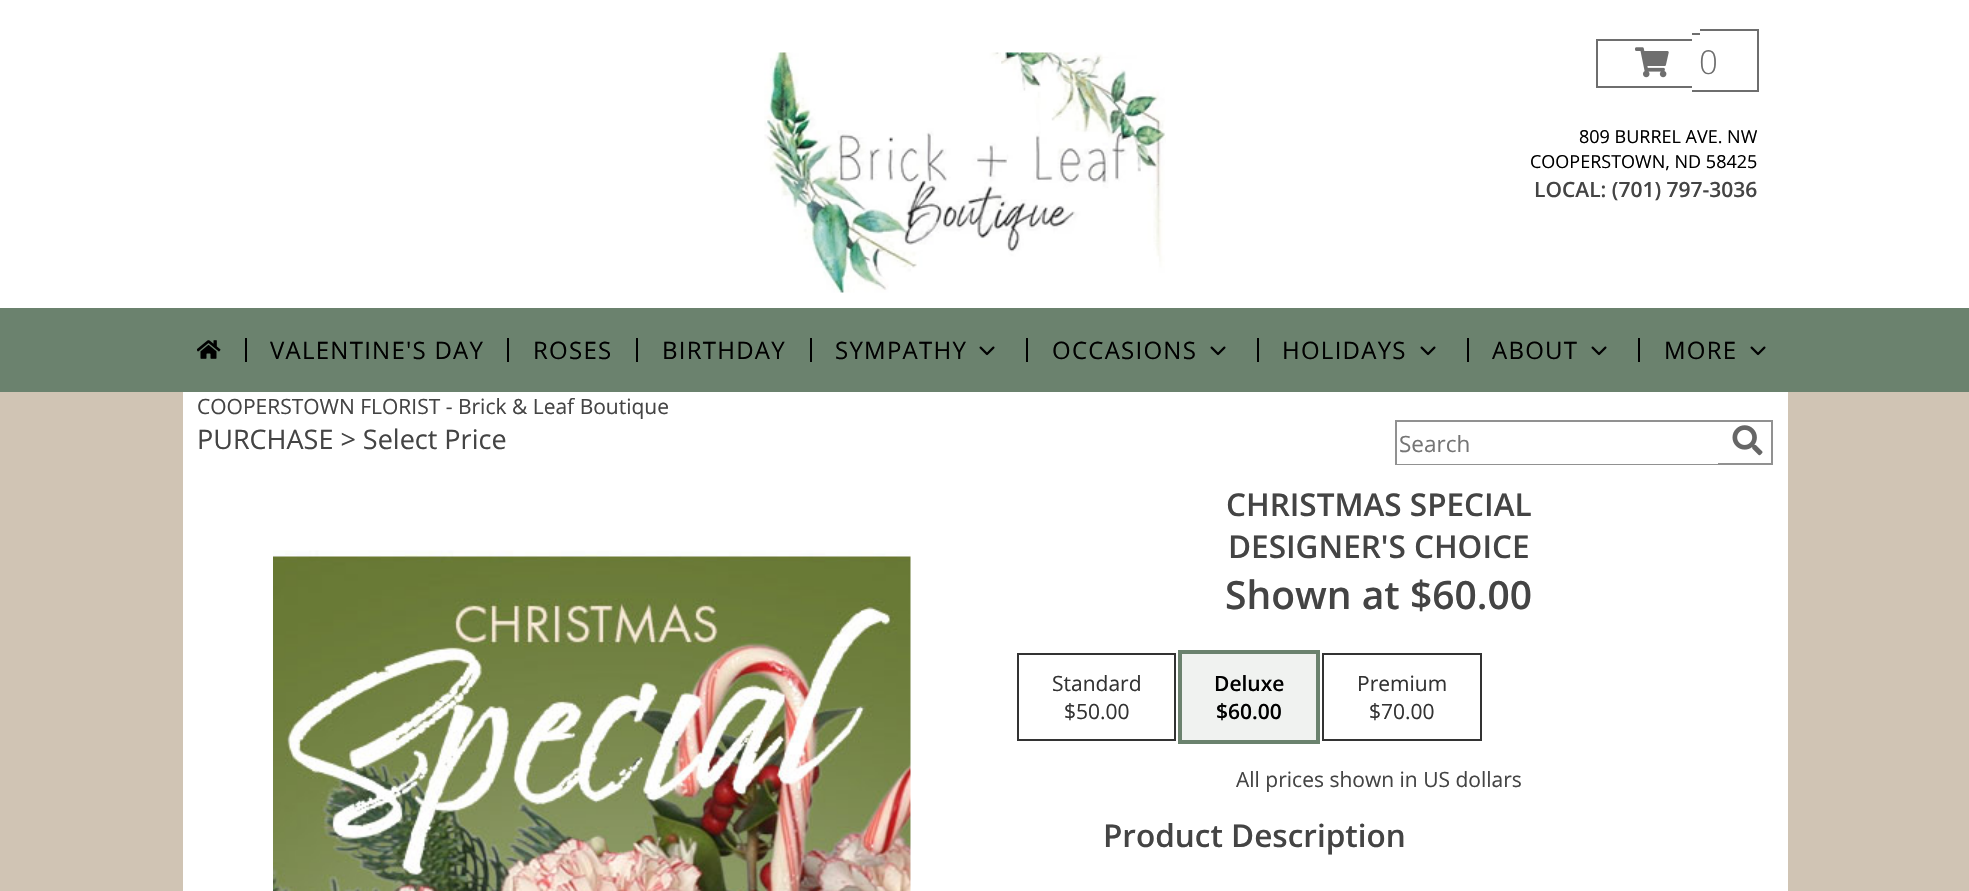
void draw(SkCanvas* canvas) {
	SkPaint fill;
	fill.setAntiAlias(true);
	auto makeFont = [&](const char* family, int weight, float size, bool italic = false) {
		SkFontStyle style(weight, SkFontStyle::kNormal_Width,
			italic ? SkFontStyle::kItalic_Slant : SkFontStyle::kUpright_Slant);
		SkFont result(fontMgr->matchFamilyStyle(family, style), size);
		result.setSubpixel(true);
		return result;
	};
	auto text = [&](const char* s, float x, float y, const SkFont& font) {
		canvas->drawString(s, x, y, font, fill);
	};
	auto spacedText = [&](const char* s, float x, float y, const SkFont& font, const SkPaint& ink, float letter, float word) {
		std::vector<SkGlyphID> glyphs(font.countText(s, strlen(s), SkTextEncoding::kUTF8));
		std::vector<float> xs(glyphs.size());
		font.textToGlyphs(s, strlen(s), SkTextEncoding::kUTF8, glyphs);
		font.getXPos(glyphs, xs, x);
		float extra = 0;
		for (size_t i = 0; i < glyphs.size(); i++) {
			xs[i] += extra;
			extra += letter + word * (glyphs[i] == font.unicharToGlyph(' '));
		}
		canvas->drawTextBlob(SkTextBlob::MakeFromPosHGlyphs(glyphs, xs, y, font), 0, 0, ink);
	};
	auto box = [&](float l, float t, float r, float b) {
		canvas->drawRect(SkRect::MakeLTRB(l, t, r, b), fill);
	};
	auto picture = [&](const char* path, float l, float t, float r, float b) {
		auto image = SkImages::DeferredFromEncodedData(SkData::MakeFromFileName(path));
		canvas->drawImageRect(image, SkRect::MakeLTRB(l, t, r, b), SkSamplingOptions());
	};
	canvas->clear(0xFFD0C4B4);
	fill.setColor(0xFFFFFFFF);
	box(183, 392, 1788, 891);
	box(0, 0, 1969, 308);
	picture("image0.png", 764, 52, 1166, 293);
	fill.setColor(0xFF6E6E6E);
	box(1596, 39, 1692, 41);
	box(1596, 86, 1692, 88);
	box(1596, 39, 1598, 87);
	box(1692, 33, 1700, 35);
	box(1692, 90, 1700, 92);
	box(1700, 29, 1758, 31);
	box(1757, 29, 1759, 92);
	box(1700, 90, 1758, 92);
	picture("image1.png", 1635, 47, 1669, 78);
	fill.setColor(0xFF6B826E);
	box(0, 308, 1969, 392);
	picture("image2.png", 197, 340, 221, 359);
	fill.setColor(0xFF000000);
	box(245, 338, 247, 362);
	box(507, 338, 509, 362);
	box(636, 338, 638, 362);
	box(810, 338, 812, 362);
	picture("image3.png", 979, 346, 995, 356);
	box(1026, 338, 1028, 362);
	picture("image3.png", 1210, 346, 1226, 356);
	box(1257, 338, 1259, 362);
	picture("image3.png", 1420, 346, 1436, 356);
	box(1467, 338, 1469, 362);
	picture("image3.png", 1591, 346, 1607, 356);
	box(1638, 338, 1640, 362);
	picture("image3.png", 1750, 346, 1766, 356);
	fill.setStyle(SkPaint::kStroke_Style);
	fill.setStrokeWidth(2);
	fill.setColor(0xFF919191);
	canvas->drawRect(SkRect::MakeLTRB(1396, 421, 1772, 464), fill);
	fill.setStyle(SkPaint::kFill_Style);
	fill.setColor(0xFFFFFFFF);
	box(1397, 463, 1718, 464);
	picture("image4.png", 1732, 425, 1763, 456);
	picture("image5.png", 273, 550, 911, 891);
	fill.setStyle(SkPaint::kStroke_Style);
	fill.setColor(0xFF333333);
	canvas->drawRect(SkRect::MakeLTRB(1018, 654, 1175, 740), fill);
	fill.setStrokeWidth(5);
	fill.setColor(0xFF6B826E);
	canvas->drawRect(SkRect::MakeLTRB(1180.5f, 652.5f, 1317.5f, 741.5f), fill);
	fill.setStyle(SkPaint::kFill_Style);
	fill.setColor(0xFFF0F2F0);
	box(1182, 654, 1316, 740);
	fill.setStyle(SkPaint::kStroke_Style);
	fill.setStrokeWidth(2);
	fill.setColor(0xFF333333);
	canvas->drawRect(SkRect::MakeLTRB(1323, 654, 1481, 740), fill);
	auto font1 = makeFont("Open Sans", 300, 33);
	fill.setStyle(SkPaint::kFill_Style);
	fill.setColor(0xFF6E6E6E);
	text("0", 1699, 74, font1);
	auto font2 = makeFont("Open Sans", 400, 18);
	fill.setColor(0xFF000000);
	text("809 BURREL AVE. NW", 1579, 143, font2);
	text("COOPERSTOWN, ND 58425", 1530, 168, font2);
	auto font3 = makeFont("Open Sans", 600, 21);
	fill.setColor(0xFF444444);
	text("LOCAL: (701) 797-3036", 1534, 197, font3);
	auto font4 = makeFont("Open Sans", 400, 24);
	fill.setColor(0xFF000000);
	spacedText("VALENTINE'S DAY", 270, 359, font4, fill, 1.25f, 0);
	spacedText("ROSES", 533, 359, font4, fill, 1.25f, 0);
	spacedText("BIRTHDAY", 662, 359, font4, fill, 1.25f, 0);
	spacedText("SYMPATHY", 835, 359, font4, fill, 1.25f, 0);
	spacedText("OCCASIONS", 1052, 359, font4, fill, 1.25f, 0);
	spacedText("HOLIDAYS", 1282, 359, font4, fill, 1.25f, 0);
	spacedText("ABOUT", 1492, 359, font4, fill, 1.25f, 0);
	spacedText("MORE", 1664, 359, font4, fill, 1.25f, 0);
	auto font5 = makeFont("Open Sans", 400, 21);
	fill.setColor(0xFF444444);
	text("COOPERSTOWN FLORIST - Brick & Leaf Boutique", 197, 414, font5);
	auto font6 = makeFont("Open Sans", 400, 27);
	text("PURCHASE > Select Price", 197, 449, font6);
	auto font7 = makeFont("Open Sans", 400, 22.5f);
	fill.setColor(0xFF757575);
	text("Search", 1399, 452, font7);
	auto font8 = makeFont("Open Sans", 600, 31.5f);
	fill.setColor(0xFF444444);
	text("CHRISTMAS SPECIAL", 1226, 516, font8);
	text("DESIGNER'S CHOICE", 1228, 558, font8);
	auto font9 = makeFont("Open Sans", 600, 39);
	text("Shown at $60.00", 1225, 609, font9);
	fill.setColor(0xFF333333);
	text("Standard", 1052, 691, font5);
	text("$50.00", 1064, 719, font5);
	fill.setColor(0xFF000000);
	text("Deluxe", 1214, 691, font3);
	text("$60.00", 1216, 719, font3);
	fill.setColor(0xFF333333);
	text("Premium", 1357, 691, font5);
	text("$70.00", 1369, 719, font5);
	fill.setColor(0xFF444444);
	text("All prices shown in US dollars", 1236, 787, font5);
	text("Product Description", 1103, 847, font8);
}
